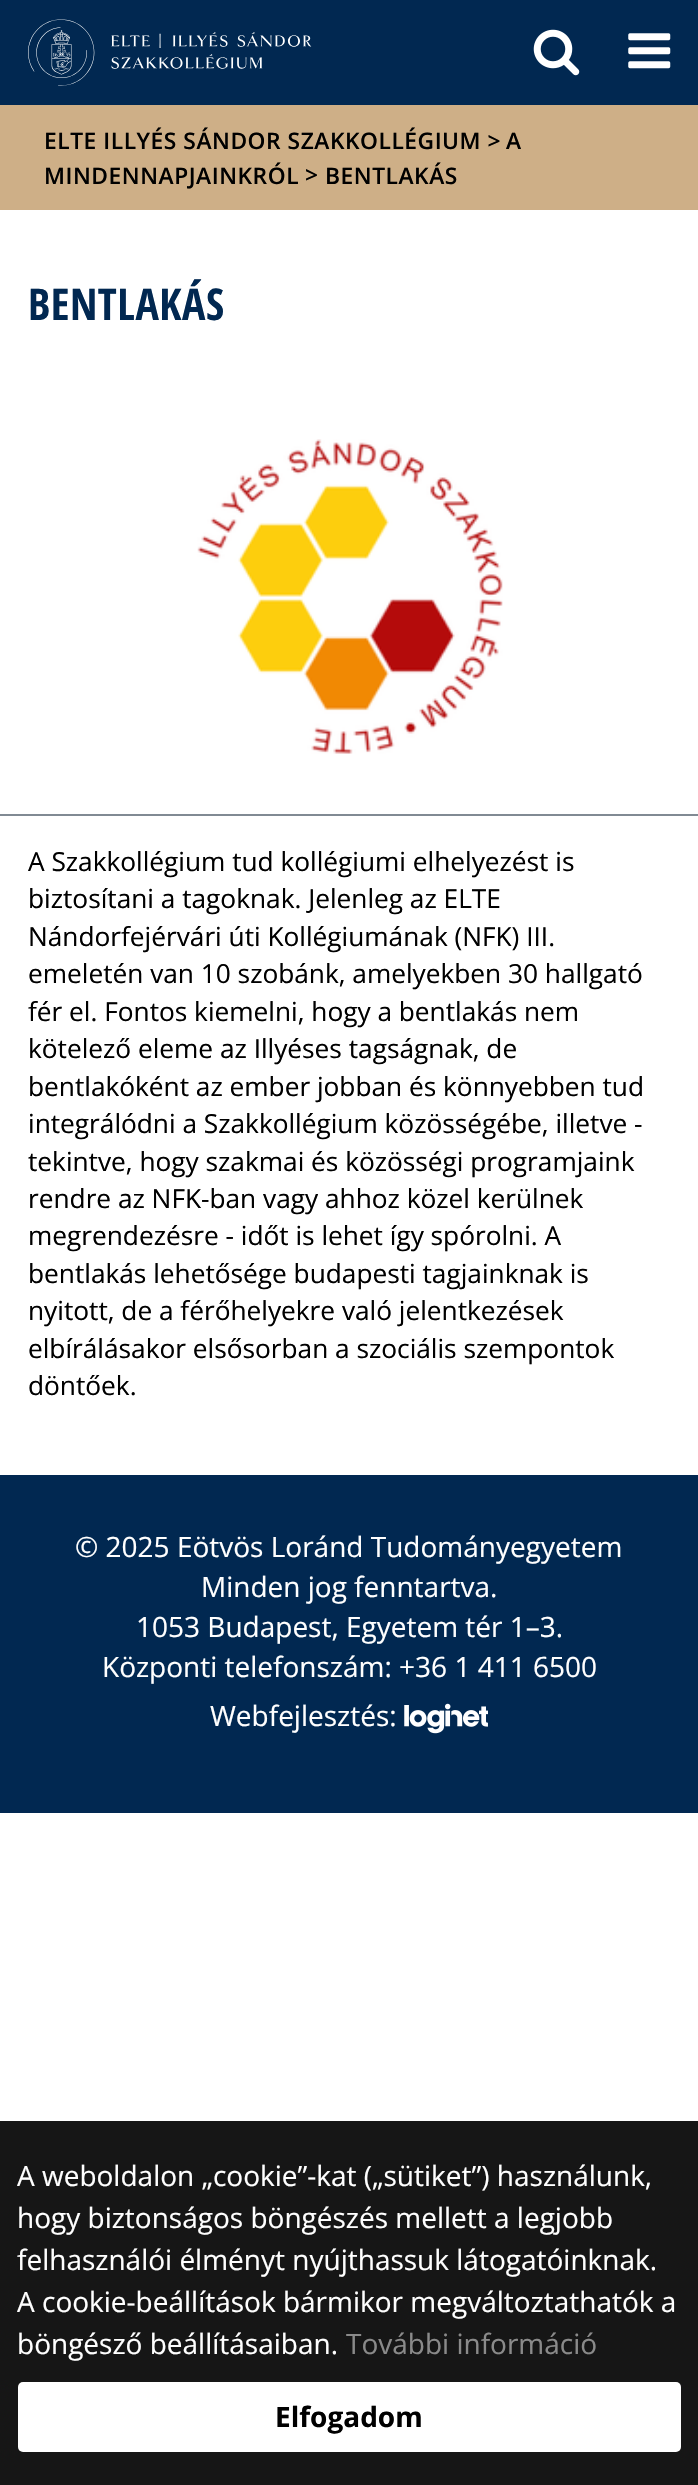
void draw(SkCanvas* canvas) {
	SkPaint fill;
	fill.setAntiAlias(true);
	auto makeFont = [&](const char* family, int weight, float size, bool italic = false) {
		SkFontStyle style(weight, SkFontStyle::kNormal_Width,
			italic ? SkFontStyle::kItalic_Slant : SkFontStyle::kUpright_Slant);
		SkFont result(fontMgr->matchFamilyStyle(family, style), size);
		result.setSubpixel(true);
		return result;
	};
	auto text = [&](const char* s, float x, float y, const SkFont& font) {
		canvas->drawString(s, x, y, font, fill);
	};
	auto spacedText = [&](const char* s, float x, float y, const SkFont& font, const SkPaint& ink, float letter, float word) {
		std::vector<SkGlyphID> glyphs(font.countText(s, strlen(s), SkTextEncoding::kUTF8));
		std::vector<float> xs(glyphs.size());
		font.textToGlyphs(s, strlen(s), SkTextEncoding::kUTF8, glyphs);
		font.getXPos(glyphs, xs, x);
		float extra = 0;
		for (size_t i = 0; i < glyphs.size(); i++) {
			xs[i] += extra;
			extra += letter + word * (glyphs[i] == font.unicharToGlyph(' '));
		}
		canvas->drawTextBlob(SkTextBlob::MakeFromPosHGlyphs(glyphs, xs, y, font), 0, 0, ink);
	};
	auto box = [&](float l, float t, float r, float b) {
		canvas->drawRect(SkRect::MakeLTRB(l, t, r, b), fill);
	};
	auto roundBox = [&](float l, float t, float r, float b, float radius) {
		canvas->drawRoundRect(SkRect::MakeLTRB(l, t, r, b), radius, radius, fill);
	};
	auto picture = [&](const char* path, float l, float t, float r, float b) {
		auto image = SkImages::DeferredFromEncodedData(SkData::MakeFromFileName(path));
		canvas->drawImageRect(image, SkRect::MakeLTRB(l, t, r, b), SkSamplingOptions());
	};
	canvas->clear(0xFFFFFFFF);
	fill.setColor(0xFF012851);
	box(0, 0, 698, 105);
	picture("image0.png", 28, 19, 312, 86);
	picture("image1.png", 533, 29, 580, 76);
	picture("image2.png", 628, 33, 671, 69);
	fill.setColor(0xFFCEAF87);
	box(0, 105, 698, 210);
	fill.setColor(0xFF818A93);
	box(0, 814, 698, 816);
	picture("image3.png", 197, 439, 503, 754);
	fill.setColor(0xFF012851);
	box(0, 1475, 698, 1813);
	picture("image4.png", 404, 1703, 488, 1734);
	fill.setColor(0xFF161616);
	box(0, 2121, 698, 2485);
	fill.setColor(0xFFFFFFFF);
	roundBox(18, 2382, 681, 2452, 5);
	auto font1 = makeFont("Open Sans", 600, 22.75f);
	fill.setColor(0xFF000000);
	spacedText("ELTE ILLYÉS SÁNDOR SZAKKOLLÉGIUM >", 44, 149, font1, fill, 0.55f, 0);
	spacedText("A", 506, 149, font1, fill, 0.55f, 0);
	spacedText("MINDENNAPJAINKRÓL", 44, 184, font1, fill, 0.55f, 0);
	spacedText(">", 305, 183, font1, fill, 0.55f, 0);
	spacedText("BENTLAKÁS", 325, 184, font1, fill, 0.55f, 0);
	auto font2 = makeFont("Open Sans Condensed", 700, 43.75f);
	fill.setColor(0xFF012851);
	spacedText("BENTLAKÁS", 28, 320, font2, fill, 0.55f, 0);
	auto font3 = makeFont("Open Sans", 400, 26.25f);
	fill.setColor(0xFF000000);
	text("A Szakkollégium tud kollégiumi elhelyezést is", 28, 871, font3);
	text("biztosítani a tagoknak. Jelenleg az ELTE", 28, 908, font3);
	text("Nándorfejérvári úti Kollégiumának (NFK) III.", 28, 946, font3);
	text("emeletén van 10 szobánk, amelyekben 30 hallgató", 28, 983, font3);
	text("fér el. Fontos kiemelni, hogy a bentlakás nem", 28, 1021, font3);
	text("kötelező eleme az Illyéses tagságnak, de", 28, 1058, font3);
	text("bentlakóként az ember jobban és könnyebben tud", 28, 1096, font3);
	text("integrálódni a Szakkollégium közösségébe, illetve -", 28, 1133, font3);
	text("tekintve, hogy szakmai és közösségi programjaink", 28, 1171, font3);
	text("rendre az NFK-ban vagy ahhoz közel kerülnek", 28, 1208, font3);
	text("megrendezésre - időt is lehet így spórolni. A", 28, 1245, font3);
	text("bentlakás lehetősége budapesti tagjainknak is", 28, 1283, font3);
	text("nyitott, de a férőhelyekre való jelentkezések", 28, 1320, font3);
	text("elbírálásakor elsősorban a szociális szempontok", 28, 1358, font3);
	text("döntőek.", 28, 1395, font3);
	auto font4 = makeFont("Open Sans", 400, 28);
	fill.setColor(0xFFFFFFFF);
	text("© 2025 Eötvös Loránd Tudományegyetem", 75, 1557, font4);
	text("Minden jog fenntartva.", 201, 1597, font4);
	text("1053 Budapest, Egyetem tér 1–3.", 136, 1637, font4);
	text("Központi telefonszám: +36 1 411 6500", 102, 1677, font4);
	text("Webfejlesztés:", 210, 1726, font4);
	text("A weboldalon „cookie”-kat („sütiket”) használunk,", 17, 2186, font4);
	text("hogy biztonságos böngészés mellett a legjobb", 17, 2228, font4);
	text("felhasználói élményt nyújthassuk látogatóinknak.", 17, 2270, font4);
	text("A cookie-beállítások bármikor megváltoztathatók a", 17, 2312, font4);
	text("böngésző beállításaiban.", 17, 2354, font4);
	fill.setColor(0xFF8A8A8A);
	text("További információ", 346, 2354, font4);
	auto font5 = makeFont("Open Sans", 700, 28);
	fill.setColor(0xFF000000);
	text("Elfogadom", 275, 2427, font5);
}
